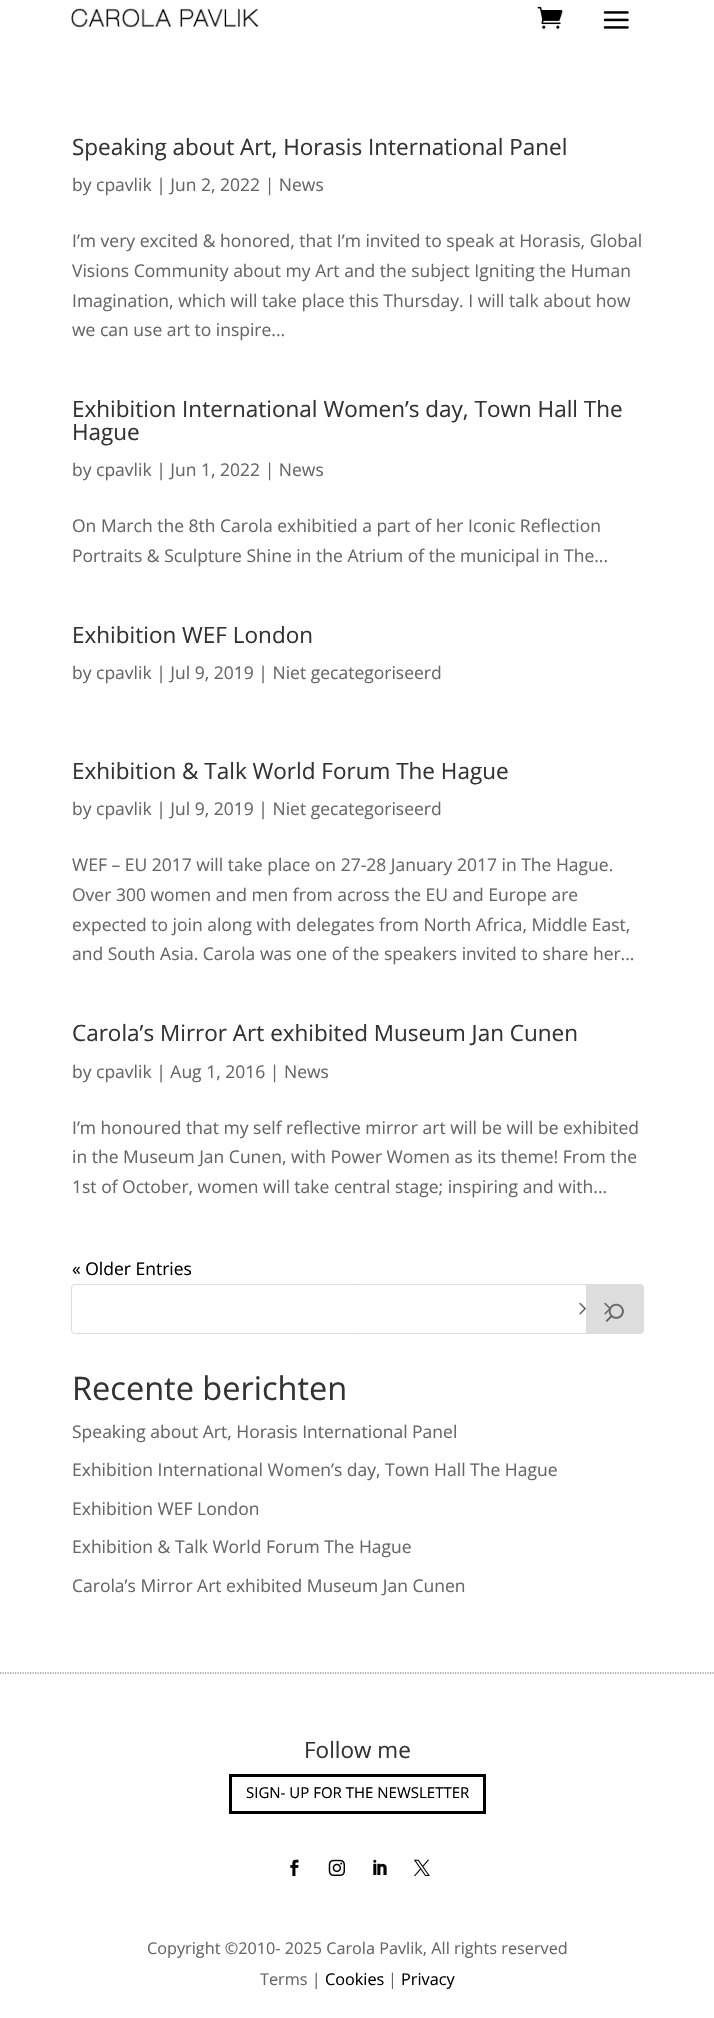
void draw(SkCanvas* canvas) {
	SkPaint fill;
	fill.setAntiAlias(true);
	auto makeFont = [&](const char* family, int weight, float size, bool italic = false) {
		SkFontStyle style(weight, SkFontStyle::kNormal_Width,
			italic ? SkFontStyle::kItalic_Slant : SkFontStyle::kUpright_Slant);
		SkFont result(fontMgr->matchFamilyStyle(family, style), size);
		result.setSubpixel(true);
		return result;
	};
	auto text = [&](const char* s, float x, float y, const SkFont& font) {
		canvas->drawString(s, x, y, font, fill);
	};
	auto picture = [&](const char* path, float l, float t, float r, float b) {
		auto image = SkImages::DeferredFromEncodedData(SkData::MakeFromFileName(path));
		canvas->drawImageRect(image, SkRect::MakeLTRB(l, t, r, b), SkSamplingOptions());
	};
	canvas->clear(0xFFFFFFFF);
	picture("image0.png", 71, 8, 259, 28);
	picture("image1.png", 537, 6, 563, 29);
	picture("image2.png", 603, 11, 629, 29);
	fill.setStyle(SkPaint::kStroke_Style);
	fill.setStrokeWidth(1);
	fill.setColor(0xFFDDDDDD);
	canvas->drawRoundRect(SkRect::MakeLTRB(71.5f, 1284.5f, 643.5f, 1333.5f), 3.5f, 3.5f, fill);
	fill.setStyle(SkPaint::kFill_Style);
	canvas->drawPath(SkPathBuilder().moveTo(586.5f, 1284.5f).lineTo(640, 1284.5f).cubicTo(642, 1284.5f, 643.5f, 1286, 643.5f, 1288).lineTo(643.5f, 1330).cubicTo(643.5f, 1332, 642, 1333.5f, 640, 1333.5f).lineTo(586.5f, 1333.5f).close().detach(), fill);
	fill.setStyle(SkPaint::kStroke_Style);
	canvas->drawPath(SkPathBuilder().moveTo(586.5f, 1284.5f).lineTo(640, 1284.5f).cubicTo(642, 1284.5f, 643.5f, 1286, 643.5f, 1288).lineTo(643.5f, 1330).cubicTo(643.5f, 1332, 642, 1333.5f, 640, 1333.5f).lineTo(586.5f, 1333.5f).close().detach(), fill);
	picture("image3.png", 605, 1303, 624, 1322);
	picture("image4.png", 579, 1302, 610, 1315);
	fill.setStrokeWidth(1.2f);
	fill.setColor(0xFF666666);
	fill.setPathEffect(SkDashPathEffect::Make({{1.25f, 1.25f}}, 0));
	canvas->drawPath(SkPathBuilder().moveTo(0, 1673).lineTo(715, 1673).detach(), fill);
	fill.setPathEffect(nullptr);
	fill.setStrokeWidth(3);
	fill.setColor(0xFF000000);
	canvas->drawRect(SkRect::MakeLTRB(230.5f, 1775.5f, 484.5f, 1812.5f), fill);
	picture("image5.png", 290, 1859, 299, 1876);
	picture("image6.png", 328, 1859, 345, 1876);
	picture("image7.png", 373, 1859, 387, 1875);
	picture("image8.png", 413, 1859, 430, 1876);
	auto font1 = makeFont("Open Sans", 400, 22.5f);
	fill.setStyle(SkPaint::kFill_Style);
	fill.setColor(0xFF333333);
	text("Speaking about Art, Horasis International Panel", 72, 155, font1);
	auto font2 = makeFont("Open Sans", 400, 17.5f);
	fill.setColor(0xFF666666);
	text("by cpavlik | Jun 2, 2022 | News", 72, 191, font2);
	text("I’m very excited & honored, that I’m invited to speak at Horasis, Global", 72, 247, font2);
	text("Visions Community about my Art and the subject Igniting the Human", 72, 277, font2);
	text("Imagination, which will take place this Thursday. I will talk about how", 72, 307, font2);
	text("we can use art to inspire...", 72, 336, font2);
	fill.setColor(0xFF333333);
	text("Exhibition International Women’s day, Town Hall The", 72, 417, font1);
	text("Hague", 72, 440, font1);
	fill.setColor(0xFF666666);
	text("by cpavlik | Jun 1, 2022 | News", 72, 476, font2);
	text("On March the 8th Carola exhibitied a part of her Iconic Reflection", 72, 532, font2);
	text("Portraits & Sculpture Shine in the Atrium of the municipal in The...", 72, 562, font2);
	fill.setColor(0xFF333333);
	text("Exhibition WEF London", 72, 643, font1);
	fill.setColor(0xFF666666);
	text("by cpavlik | Jul 9, 2019 | Niet gecategoriseerd", 72, 679, font2);
	fill.setColor(0xFF333333);
	text("Exhibition & Talk World Forum The Hague", 72, 779, font1);
	fill.setColor(0xFF666666);
	text("by cpavlik | Jul 9, 2019 | Niet gecategoriseerd", 72, 815, font2);
	text("WEF – EU 2017 will take place on 27-28 January 2017 in The Hague.", 72, 871, font2);
	text("Over 300 women and men from across the EU and Europe are", 72, 901, font2);
	text("expected to join along with delegates from North Africa, Middle East,", 72, 931, font2);
	text("and South Asia. Carola was one of the speakers invited to share her...", 72, 960, font2);
	fill.setColor(0xFF333333);
	text("Carola’s Mirror Art exhibited Museum Jan Cunen", 72, 1041, font1);
	fill.setColor(0xFF666666);
	text("by cpavlik | Aug 1, 2016 | News", 72, 1078, font2);
	text("I’m honoured that my self reflective mirror art will be will be exhibited", 72, 1134, font2);
	text("in the Museum Jan Cunen, with Power Women as its theme! From the", 72, 1163, font2);
	text("1st of October, women will take central stage; inspiring and with...", 72, 1193, font2);
	fill.setColor(0xFF000000);
	text("« Older Entries", 72, 1275, font2);
	auto font3 = makeFont("Open Sans", 400, 32.5f);
	fill.setColor(0xFF333333);
	text("Recente berichten", 72, 1400, font3);
	fill.setColor(0xFF666666);
	text("Speaking about Art, Horasis International Panel", 72, 1438, font2);
	text("Exhibition International Women’s day, Town Hall The Hague", 72, 1476, font2);
	text("Exhibition WEF London", 72, 1515, font2);
	text("Exhibition & Talk World Forum The Hague", 72, 1553, font2);
	text("Carola’s Mirror Art exhibited Museum Jan Cunen", 72, 1592, font2);
	fill.setColor(0xFF333333);
	text("Follow me", 304, 1758, font1);
	auto font4 = makeFont("Open Sans", 400, 15);
	fill.setColor(0xFF000000);
	text("SIGN- UP FOR THE NEWSLETTER", 246, 1798, font4);
	auto font5 = makeFont("Open Sans", 400, 16.25f);
	fill.setColor(0xFF666666);
	text("Copyright ©2010- 2025 Carola Pavlik, All rights reserved", 147, 1954, font5);
	text("Terms |", 260, 1985, font5);
	fill.setColor(0xFF000000);
	text("Cookies", 325, 1985, font5);
	fill.setColor(0xFF666666);
	text("|", 388, 1985, font5);
	fill.setColor(0xFF000000);
	text("Privacy", 401, 1985, font5);
}
